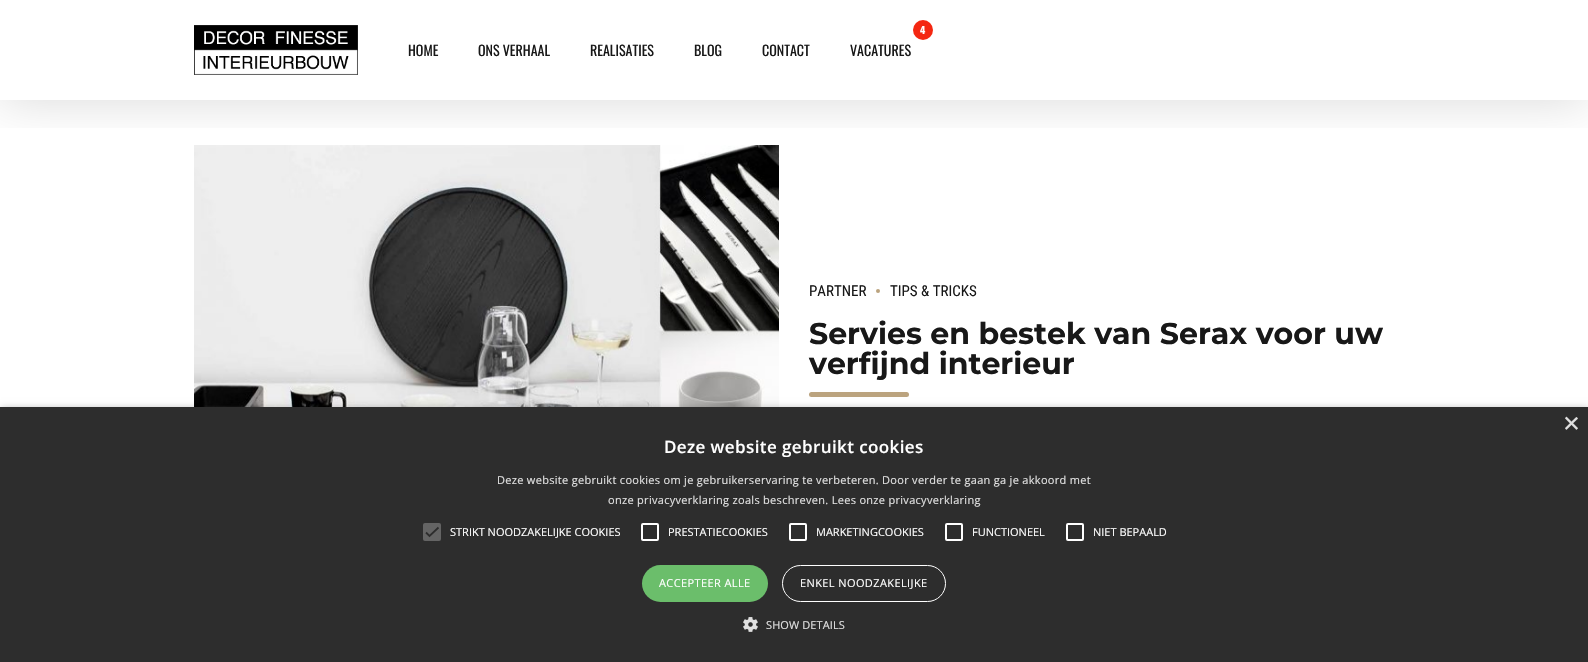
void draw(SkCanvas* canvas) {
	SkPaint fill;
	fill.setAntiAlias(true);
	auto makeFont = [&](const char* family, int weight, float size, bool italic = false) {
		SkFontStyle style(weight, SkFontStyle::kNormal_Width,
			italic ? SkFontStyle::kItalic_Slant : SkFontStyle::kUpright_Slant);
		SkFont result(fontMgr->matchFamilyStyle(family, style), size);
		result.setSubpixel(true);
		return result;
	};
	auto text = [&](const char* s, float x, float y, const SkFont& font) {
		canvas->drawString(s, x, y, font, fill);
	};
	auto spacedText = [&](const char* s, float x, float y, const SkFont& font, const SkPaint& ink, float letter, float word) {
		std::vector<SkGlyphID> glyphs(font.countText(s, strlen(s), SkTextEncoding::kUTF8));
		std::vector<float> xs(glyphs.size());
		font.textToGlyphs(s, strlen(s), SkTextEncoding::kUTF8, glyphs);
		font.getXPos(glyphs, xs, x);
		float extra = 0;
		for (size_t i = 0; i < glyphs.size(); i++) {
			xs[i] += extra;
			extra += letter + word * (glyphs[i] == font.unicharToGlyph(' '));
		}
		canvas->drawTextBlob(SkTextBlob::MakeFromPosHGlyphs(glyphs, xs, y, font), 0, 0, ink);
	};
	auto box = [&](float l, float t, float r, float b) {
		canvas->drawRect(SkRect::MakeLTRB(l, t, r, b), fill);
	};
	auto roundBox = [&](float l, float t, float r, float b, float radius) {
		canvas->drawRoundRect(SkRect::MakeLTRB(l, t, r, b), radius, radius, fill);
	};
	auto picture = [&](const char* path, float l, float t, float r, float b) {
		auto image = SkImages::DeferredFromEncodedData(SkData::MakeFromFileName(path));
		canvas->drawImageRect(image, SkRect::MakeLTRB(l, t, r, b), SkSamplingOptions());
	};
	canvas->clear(0xFFFFFFFF);
	picture("image1.png", 194, 145, 779, 407);
	canvas->save();
	canvas->clipRect(SkRect::MakeLTRB(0, 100, 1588, 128));
	fill.setColor(0x26000000);
	fill.setMaskFilter(SkMaskFilter::MakeBlur(kNormal_SkBlurStyle, 25));
	canvas->drawRect(SkRect::MakeLTRB(0, 0, 1588, 100), fill);
	fill.setMaskFilter(nullptr);
	canvas->restore();
	picture("image0.png", 194, 25, 358, 75);
	fill.setColor(0xFFF42711);
	canvas->drawCircle(923, 30, 10, fill);
	fill.setColor(0xFFBBA37E);
	canvas->drawCircle(878, 291, 2, fill);
	roundBox(809, 392, 909, 397, 2.5f);
	fill.setColor(0x59000000);
	fill.setMaskFilter(SkMaskFilter::MakeBlur(kNormal_SkBlurStyle, 4));
	canvas->drawRect(SkRect::MakeLTRB(1, 409, 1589, 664), fill);
	fill.setMaskFilter(nullptr);
	fill.setColor(0xFF2D2D2D);
	box(0, 407, 1588, 662);
	fill.setColor(0xFF646464);
	roundBox(423, 523, 441, 541, 2);
	fill.setStyle(SkPaint::kStroke_Style);
	fill.setStrokeWidth(1.8f);
	fill.setColor(0xFF2D2D2D);
	canvas->drawPath(SkPathBuilder().moveTo(426, 532.5f).lineTo(429.5f, 536).lineTo(438.5f, 527.5f).detach(), fill);
	fill.setStrokeWidth(2);
	fill.setColor(0xFFFFFFFF);
	canvas->drawRoundRect(SkRect::MakeLTRB(642, 524, 658, 540), 1, 1, fill);
	canvas->drawRoundRect(SkRect::MakeLTRB(790, 524, 806, 540), 1, 1, fill);
	canvas->drawRoundRect(SkRect::MakeLTRB(946, 524, 962, 540), 1, 1, fill);
	canvas->drawRoundRect(SkRect::MakeLTRB(1067, 524, 1083, 540), 1, 1, fill);
	fill.setStyle(SkPaint::kFill_Style);
	fill.setColor(0xFF6BBE6B);
	roundBox(642, 565, 768, 602, 18.5f);
	fill.setStyle(SkPaint::kStroke_Style);
	fill.setStrokeWidth(1);
	fill.setColor(0xFFFFFFFF);
	canvas->drawRoundRect(SkRect::MakeLTRB(782.5f, 565.5f, 945.5f, 601.5f), 18, 18, fill);
	picture("image2.png", 743, 617, 758, 632);
	auto font1 = makeFont("Oswald", 400, 14);
	fill.setStyle(SkPaint::kFill_Style);
	fill.setColor(0xFF181818);
	text("HOME", 408, 56, font1);
	text("ONS VERHAAL", 478, 56, font1);
	text("REALISATIES", 590, 56, font1);
	text("BLOG", 694, 56, font1);
	text("CONTACT", 762, 56, font1);
	auto font2 = makeFont("Oswald", 700, 10);
	fill.setColor(0xFFFFFFFF);
	text("4", 920, 34, font2);
	fill.setColor(0xFF181818);
	text("VACATURES", 850, 56, font1);
	auto font3 = makeFont("Roboto Condensed", 400, 15);
	text("PARTNER", 809, 296, font3);
	text("TIPS & TRICKS", 890, 296, font3);
	auto font4 = makeFont("Montserrat", 700, 30);
	text("Servies en bestek van Serax voor uw", 809, 344, font4);
	text("verfijnd interieur", 809, 374, font4);
	auto font5 = makeFont("Liberation Sans", 400, 29);
	fill.setColor(0xFFE0E0E0);
	text("×", 1563, 433, font5);
	auto font6 = makeFont("Open Sans", 600, 17);
	fill.setColor(0xFFFFFFFF);
	spacedText("Deze website gebruikt cookies", 664, 453, font6, fill, 0.4f, 0);
	auto font7 = makeFont("Open Sans", 400, 11);
	fill.setColor(0xFFE0E0E0);
	spacedText("Deze website gebruikt cookies om je gebruikerservaring te verbeteren. Door verder te gaan ga je akkoord met", 497, 484, font7, fill, 0.3f, 0);
	spacedText("onze privacyverklaring zoals beschreven. Lees onze privacyverklaring", 608, 504, font7, fill, 0.3f, 0);
	fill.setColor(0xFFFFFFFF);
	text("STRIKT NOODZAKELIJKE COOKIES", 450, 536, font7);
	text("PRESTATIECOOKIES", 668, 536, font7);
	text("MARKETINGCOOKIES", 816, 536, font7);
	text("FUNCTIONEEL", 972, 536, font7);
	text("NIET BEPAALD", 1093, 536, font7);
	spacedText("ACCEPTEER ALLE", 659, 587, font7, fill, 0.4f, 0);
	spacedText("ENKEL NOODZAKELIJKE", 800, 587, font7, fill, 0.4f, 0);
	fill.setColor(0xFFE0E0E0);
	spacedText("SHOW DETAILS", 766, 629, font7, fill, 0.1f, 0);
}
